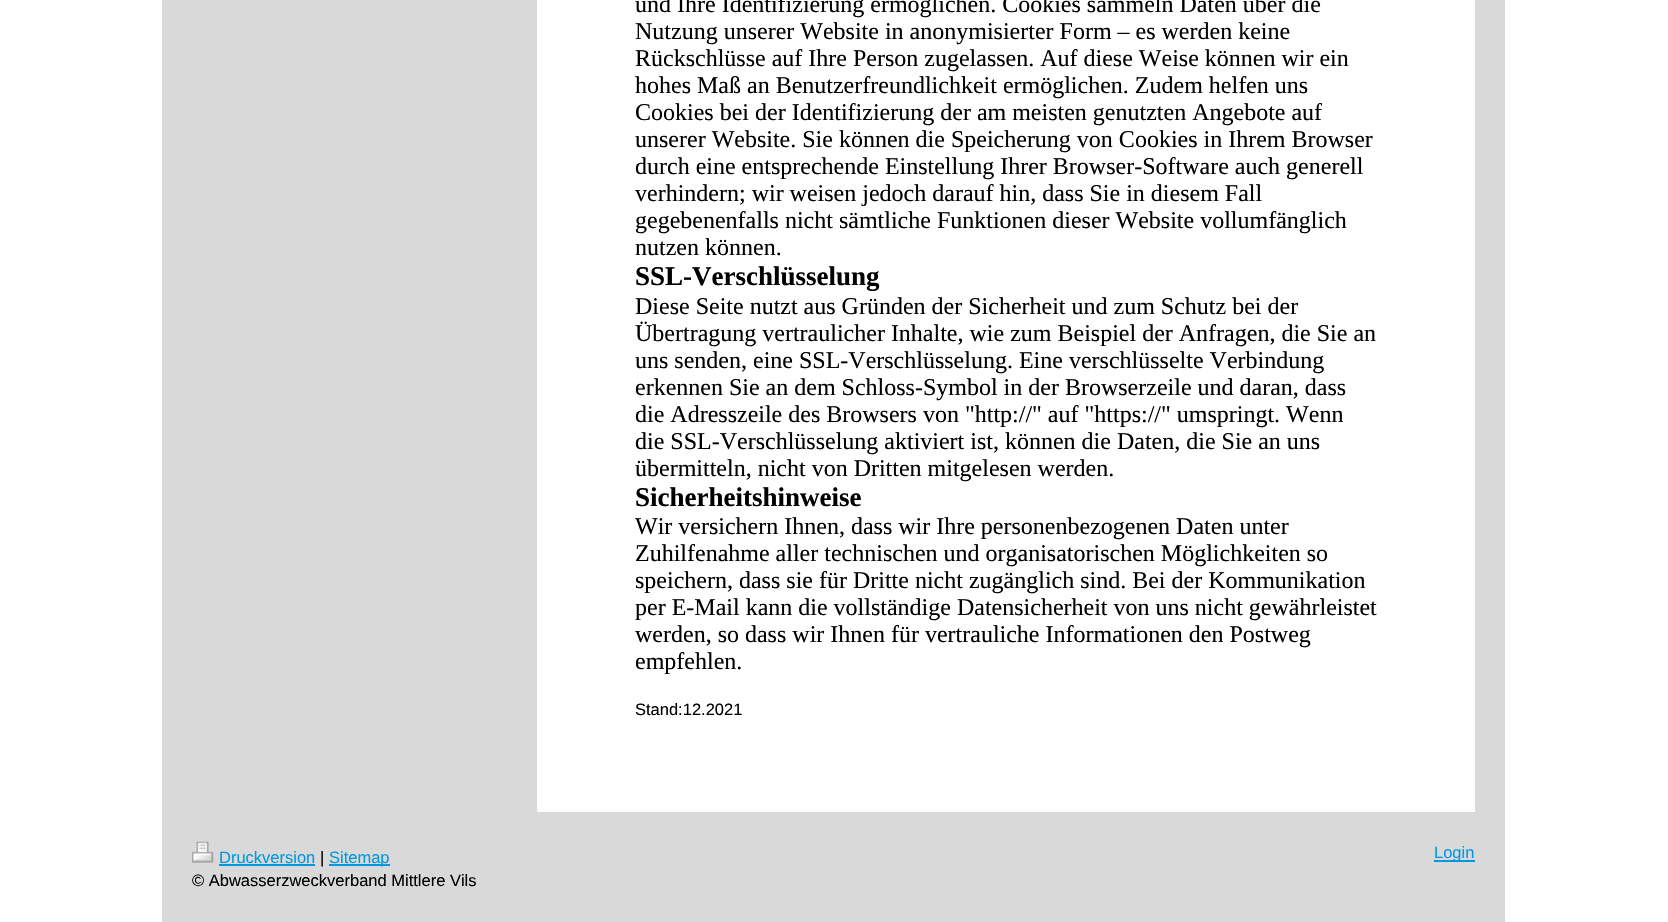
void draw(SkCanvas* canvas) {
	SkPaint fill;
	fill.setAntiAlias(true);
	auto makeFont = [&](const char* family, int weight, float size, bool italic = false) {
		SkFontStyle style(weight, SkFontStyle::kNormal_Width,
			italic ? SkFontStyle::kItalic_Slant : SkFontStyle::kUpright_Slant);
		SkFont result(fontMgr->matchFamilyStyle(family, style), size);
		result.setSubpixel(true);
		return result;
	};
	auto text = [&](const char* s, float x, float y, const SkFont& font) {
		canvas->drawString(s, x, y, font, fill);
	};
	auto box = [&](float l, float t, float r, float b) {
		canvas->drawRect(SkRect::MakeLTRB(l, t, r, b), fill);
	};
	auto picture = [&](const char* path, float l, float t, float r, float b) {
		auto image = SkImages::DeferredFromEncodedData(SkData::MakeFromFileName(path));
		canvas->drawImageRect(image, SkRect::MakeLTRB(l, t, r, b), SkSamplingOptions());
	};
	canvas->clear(0xFFFFFFFF);
	fill.setColor(0xFFD9D9D9);
	box(162, 0, 1505, 922);
	fill.setColor(0xFFFFFFFF);
	box(537, 0, 1475, 812);
	picture("image0.png", 192, 841, 214, 863);
	fill.setColor(0xFF0099E1);
	box(219, 864, 315, 866);
	box(329, 864, 390, 866);
	box(1434, 860, 1475, 862);
	auto font1 = makeFont("Liberation Serif", 400, 24);
	fill.setColor(0xFF000000);
	text("und Ihre Identifizierung ermöglichen. Cookies sammeln Daten über die", 635, 12, font1);
	text("Nutzung unserer Website in anonymisierter Form – es werden keine", 635, 39, font1);
	text("Rückschlüsse auf Ihre Person zugelassen. Auf diese Weise können wir ein", 635, 66, font1);
	text("hohes Maß an Benutzerfreundlichkeit ermöglichen. Zudem helfen uns", 635, 93, font1);
	text("Cookies bei der Identifizierung der am meisten genutzten Angebote auf", 635, 120, font1);
	text("unserer Website. Sie können die Speicherung von Cookies in Ihrem Browser", 635, 147, font1);
	text("durch eine entsprechende Einstellung Ihrer Browser-Software auch generell", 635, 174, font1);
	text("verhindern; wir weisen jedoch darauf hin, dass Sie in diesem Fall", 635, 201, font1);
	text("gegebenenfalls nicht sämtliche Funktionen dieser Website vollumfänglich", 635, 228, font1);
	text("nutzen können.", 635, 255, font1);
	auto font2 = makeFont("Liberation Serif", 700, 27);
	text("SSL-Verschlüsselung", 635, 285, font2);
	text("Diese Seite nutzt aus Gründen der Sicherheit und zum Schutz bei der", 635, 314, font1);
	text("Übertragung vertraulicher Inhalte, wie zum Beispiel der Anfragen, die Sie an", 635, 341, font1);
	text("uns senden, eine SSL-Verschlüsselung. Eine verschlüsselte Verbindung", 635, 368, font1);
	text("erkennen Sie an dem Schloss-Symbol in der Browserzeile und daran, dass", 635, 395, font1);
	text("die Adresszeile des Browsers von \"http://\" auf \"https://\" umspringt. Wenn", 635, 422, font1);
	text("die SSL-Verschlüsselung aktiviert ist, können die Daten, die Sie an uns", 635, 449, font1);
	text("übermitteln, nicht von Dritten mitgelesen werden.", 635, 476, font1);
	text("Sicherheitshinweise", 635, 506, font2);
	text("Wir versichern Ihnen, dass wir Ihre personenbezogenen Daten unter", 635, 534, font1);
	text("Zuhilfenahme aller technischen und organisatorischen Möglichkeiten so", 635, 561, font1);
	text("speichern, dass sie für Dritte nicht zugänglich sind. Bei der Kommunikation", 635, 588, font1);
	text("per E-Mail kann die vollständige Datensicherheit von uns nicht gewährleistet", 635, 615, font1);
	text("werden, so dass wir Ihnen für vertrauliche Informationen den Postweg", 635, 642, font1);
	text("empfehlen.", 635, 669, font1);
	auto font3 = makeFont("Liberation Sans", 400, 16.5f);
	text("Stand:12.2021", 635, 715, font3);
	fill.setColor(0xFF0099E1);
	text("Druckversion", 219, 863, font3);
	fill.setColor(0xFF000000);
	text("|", 320, 863, font3);
	fill.setColor(0xFF0099E1);
	text("Sitemap", 329, 863, font3);
	fill.setColor(0xFF000000);
	text("© Abwasserzweckverband Mittlere Vils", 192, 886, font3);
	fill.setColor(0xFF0099E1);
	text("Login", 1434, 858, font3);
}
